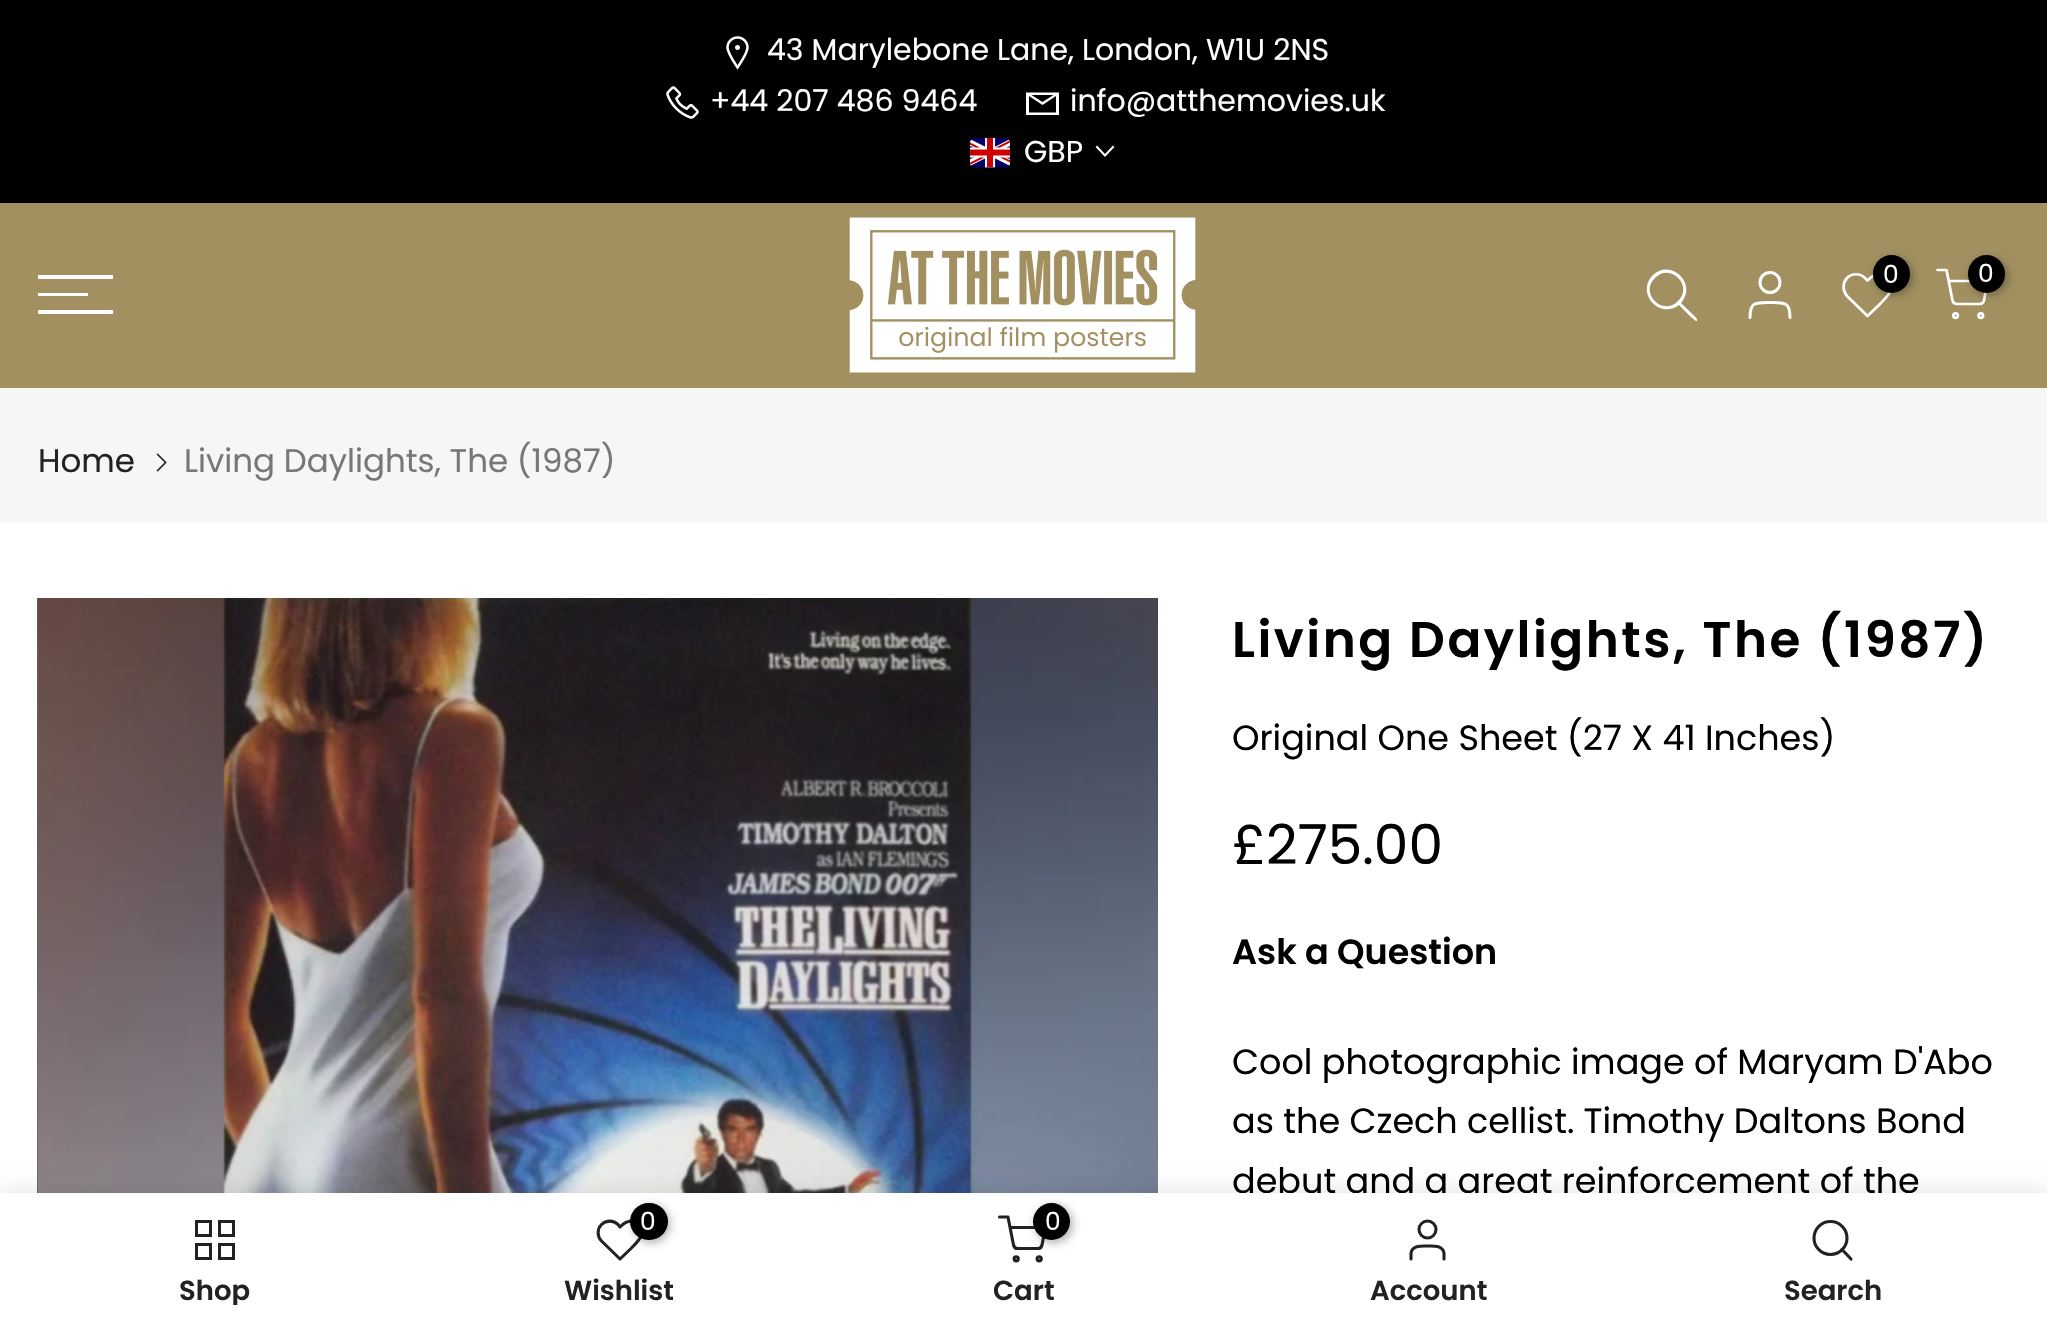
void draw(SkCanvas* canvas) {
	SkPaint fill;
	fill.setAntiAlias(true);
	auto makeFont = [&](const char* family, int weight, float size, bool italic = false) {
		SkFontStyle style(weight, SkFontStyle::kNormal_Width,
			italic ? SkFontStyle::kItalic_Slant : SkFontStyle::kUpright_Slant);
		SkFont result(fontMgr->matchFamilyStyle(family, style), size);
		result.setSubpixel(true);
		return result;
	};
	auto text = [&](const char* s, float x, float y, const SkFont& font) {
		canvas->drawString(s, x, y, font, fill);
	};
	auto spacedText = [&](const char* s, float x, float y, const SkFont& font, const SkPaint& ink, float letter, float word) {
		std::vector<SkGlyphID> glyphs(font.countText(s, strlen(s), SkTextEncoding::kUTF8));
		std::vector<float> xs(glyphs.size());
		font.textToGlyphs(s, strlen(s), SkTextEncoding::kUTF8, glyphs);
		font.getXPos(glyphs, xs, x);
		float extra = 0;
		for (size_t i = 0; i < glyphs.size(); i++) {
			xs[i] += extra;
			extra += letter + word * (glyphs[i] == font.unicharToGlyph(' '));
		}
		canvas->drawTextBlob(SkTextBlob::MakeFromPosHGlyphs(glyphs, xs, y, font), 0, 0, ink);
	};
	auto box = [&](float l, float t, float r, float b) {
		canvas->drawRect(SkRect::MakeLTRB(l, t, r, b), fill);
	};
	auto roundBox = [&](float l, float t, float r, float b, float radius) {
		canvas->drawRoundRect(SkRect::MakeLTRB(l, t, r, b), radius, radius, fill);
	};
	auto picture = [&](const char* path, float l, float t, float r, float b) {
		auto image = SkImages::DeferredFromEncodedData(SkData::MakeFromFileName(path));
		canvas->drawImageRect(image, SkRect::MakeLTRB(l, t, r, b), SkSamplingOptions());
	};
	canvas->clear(0xFFFFFFFF);
	fill.setColor(0xFF000000);
	box(0, 0, 2047, 203);
	picture("image0.png", 726, 36, 749, 70);
	picture("image1.png", 666, 86, 699, 119);
	fill.setColor(0xFFFFFFFF);
	canvas->drawPath(SkPathBuilder().moveTo(1026, 92.5f).lineTo(1026, 115).lineTo(1059, 115).lineTo(1059, 92.5f).close().moveTo(1031.5f, 95).lineTo(1053.5f, 95).lineTo(1042.5f, 102).close().moveTo(1029, 96).lineTo(1042.5f, 105).lineTo(1056, 96).lineTo(1056, 112.5f).lineTo(1029, 112.5f).close().detach(), fill);
	picture("image2.png", 970, 138, 1010, 168);
	fill.setStyle(SkPaint::kStroke_Style);
	fill.setStrokeWidth(2.1f);
	fill.setStrokeCap(SkPaint::kSquare_Cap);
	canvas->drawPath(SkPathBuilder().moveTo(1113, 147).lineTo(1105, 155.5f).lineTo(1097, 147).detach(), fill);
	fill.setStyle(SkPaint::kFill_Style);
	fill.setColor(0xFFA29061);
	box(0, 203, 2047, 388);
	picture("image3.png", 849, 217, 1196, 373);
	fill.setColor(0xFFFFFFFF);
	canvas->drawPath(SkPathBuilder(SkPathFillType::kEvenOdd).moveTo(1678, 301).cubicTo(1663, 317, 1639, 293, 1655, 278).cubicTo(1670, 262, 1694, 286, 1678, 301).close().moveTo(1679, 305).cubicTo(1660, 320, 1635, 293, 1653, 275).cubicTo(1671, 258, 1698, 284, 1681, 303).cubicTo(1683, 305, 1697, 318, 1697, 319).lineTo(1697, 321).cubicTo(1695, 322, 1681, 307, 1679, 305).close().detach(), fill);
	fill.setStyle(SkPaint::kStroke_Style);
	fill.setStrokeWidth(3);
	fill.setStrokeCap(SkPaint::kButt_Cap);
	canvas->drawCircle(1770, 282.5f, 10, fill);
	fill.setStrokeCap(SkPaint::kRound_Cap);
	fill.setStrokeJoin(SkPaint::kRound_Join);
	canvas->drawPath(SkPathBuilder().moveTo(1790, 317.5f).cubicTo(1790, 301.5f, 1784, 302.5f, 1770, 302.5f).cubicTo(1756, 302.5f, 1750, 301.5f, 1750, 317.5f).detach(), fill);
	fill.setStrokeWidth(2.7f);
	canvas->drawPath(SkPathBuilder().moveTo(1888, 278).cubicTo(1881, 271, 1873.5f, 274.5f, 1867.5f, 280.5f).lineTo(1865, 278).cubicTo(1860, 273, 1852, 273, 1847, 278).cubicTo(1842.5f, 283, 1842.5f, 291, 1847, 296).lineTo(1867.5f, 316).lineTo(1879.5f, 304.5f).cubicTo(1886, 297.5f, 1898, 288, 1888, 278).close().detach(), fill);
	fill.setStyle(SkPaint::kFill_Style);
	fill.setColor(0x4D000000);
	fill.setMaskFilter(SkMaskFilter::MakeBlur(kNormal_SkBlurStyle, 4));
	canvas->drawRoundRect(SkRect::MakeLTRB(1875, 258, 1913, 295), 18.5f, 18.5f, fill);
	fill.setMaskFilter(nullptr);
	fill.setColor(0xFF000000);
	roundBox(1873, 255, 1910, 293, 18.5f);
	fill.setStyle(SkPaint::kStroke_Style);
	fill.setColor(0xFFFFFFFF);
	canvas->drawPath(SkPathBuilder().moveTo(1937.5f, 270).lineTo(1946.5f, 270).lineTo(1952.5f, 300.5f).cubicTo(1953, 302.5f, 1955, 304, 1957, 304).lineTo(1979.5f, 304).cubicTo(1981.5f, 304, 1983.5f, 302.5f, 1984, 300.5f).lineTo(1987.5f, 281).lineTo(1949, 281).detach(), fill);
	fill.setStyle(SkPaint::kFill_Style);
	fill.setColor(0x4D000000);
	fill.setMaskFilter(SkMaskFilter::MakeBlur(kNormal_SkBlurStyle, 4));
	canvas->drawRoundRect(SkRect::MakeLTRB(1970, 258, 2008, 295), 18.5f, 18.5f, fill);
	fill.setMaskFilter(nullptr);
	fill.setColor(0xFF000000);
	roundBox(1968, 255, 2005, 293, 18.5f);
	fill.setStyle(SkPaint::kStroke_Style);
	fill.setStrokeCap(SkPaint::kButt_Cap);
	fill.setStrokeJoin(SkPaint::kMiter_Join);
	fill.setColor(0xFFFFFFFF);
	canvas->drawCircle(1955.6f, 315.6f, 2.3f, fill);
	canvas->drawCircle(1980.8f, 315.6f, 2.3f, fill);
	fill.setStyle(SkPaint::kFill_Style);
	box(38, 275, 113, 279);
	box(38, 293, 88, 296);
	box(38, 310, 113, 314);
	fill.setColor(0xFFF6F6F6);
	box(0, 388, 2047, 523);
	picture("image4.png", 156, 453, 167, 472);
	picture("image5.png", 37, 598, 38, 1193);
	picture("image6.png", 38, 598, 1158, 1193);
	fill.setColor(0x1F000000);
	fill.setMaskFilter(SkMaskFilter::MakeBlur(kNormal_SkBlurStyle, 11));
	canvas->drawRect(SkRect::MakeLTRB(0, 1193, 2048, 1330), fill);
	fill.setMaskFilter(nullptr);
	auto font1 = makeFont("Poppins", 400, 30);
	fill.setColor(0xFFFFFFFF);
	text("43 Marylebone Lane, London, W1U 2NS", 767, 60, font1);
	text("+44 207 486 9464", 710, 111, font1);
	text("info@atthemovies.uk", 1070, 111, font1);
	text("GBP", 1024, 162, font1);
	auto font2 = makeFont("Poppins", 400, 25);
	text("0", 1883, 283, font2);
	text("0", 1978, 282, font2);
	auto font3 = makeFont("Poppins", 400, 32.5f);
	fill.setColor(0xFF222222);
	text("Home", 38, 472, font3);
	fill.setColor(0xFF777777);
	text("Living Daylights, The (1987)", 184, 472, font3);
	auto font4 = makeFont("Poppins", 600, 50);
	fill.setColor(0xFF000000);
	spacedText("Living Daylights, The (1987)", 1232, 657, font4, fill, 2.5f, 0);
	auto font5 = makeFont("Poppins", 400, 35);
	text("Original One Sheet (27 X 41 Inches)", 1232, 750, font5);
	auto font6 = makeFont("Poppins", 400, 55);
	text("£275.00", 1232, 864, font6);
	auto font7 = makeFont("Poppins", 600, 35);
	text("Ask a Question", 1232, 964, font7);
	text("Cool photographic image of Maryam D'Abo", 1232, 1074, font5);
	text("as the Czech cellist. Timothy Daltons Bond", 1232, 1133, font5);
	text("debut and a great reinforcement of the", 1232, 1193, font5);
	fill.setColor(0xFFFFFFFF);
	box(0, 1193, 2047, 1330);
	fill.setStyle(SkPaint::kStroke_Style);
	fill.setStrokeWidth(3);
	fill.setColor(0xFF222222);
	canvas->drawRect(SkRect::MakeLTRB(196.5f, 1221.5f, 210.5f, 1235.5f), fill);
	canvas->drawRect(SkRect::MakeLTRB(219.5f, 1221.5f, 233.5f, 1235.5f), fill);
	canvas->drawRect(SkRect::MakeLTRB(196.5f, 1244.5f, 210.5f, 1258.5f), fill);
	canvas->drawRect(SkRect::MakeLTRB(219.5f, 1244.5f, 233.5f, 1258.5f), fill);
	canvas->save();
	canvas->clipRect(SkRect::MakeLTRB(38, 1278, 393, 1305));
	auto font8 = makeFont("Poppins", 600, 27.5f);
	fill.setStyle(SkPaint::kFill_Style);
	text("Shop", 179, 1300, font8);
	canvas->restore();
	fill.setStyle(SkPaint::kStroke_Style);
	fill.setStrokeWidth(3.1f);
	fill.setStrokeCap(SkPaint::kRound_Cap);
	fill.setStrokeJoin(SkPaint::kRound_Join);
	canvas->drawPath(SkPathBuilder().moveTo(638.5f, 1224.5f).cubicTo(632, 1218.5f, 625.5f, 1221.5f, 620, 1227).lineTo(618, 1224.5f).cubicTo(613.5f, 1220, 606, 1220, 601.5f, 1224.5f).cubicTo(597, 1229, 597, 1236.5f, 601.5f, 1241).lineTo(620, 1259).lineTo(631, 1248.5f).cubicTo(637, 1242, 647.5f, 1233.5f, 638.5f, 1224.5f).close().detach(), fill);
	fill.setStyle(SkPaint::kFill_Style);
	fill.setColor(0x4D000000);
	fill.setMaskFilter(SkMaskFilter::MakeBlur(kNormal_SkBlurStyle, 4));
	canvas->drawRoundRect(SkRect::MakeLTRB(633, 1205, 670, 1243), 18.5f, 18.5f, fill);
	fill.setMaskFilter(nullptr);
	fill.setColor(0xFF000000);
	roundBox(630, 1203, 668, 1240, 18.5f);
	fill.setColor(0xFFFFFFFF);
	text("0", 640, 1230, font2);
	fill.setColor(0xFF222222);
	text("Wishlist", 564, 1300, font8);
	fill.setStyle(SkPaint::kStroke_Style);
	canvas->drawPath(SkPathBuilder().moveTo(999.5f, 1217).lineTo(1008, 1217).lineTo(1013.5f, 1245).cubicTo(1014, 1247, 1015.5f, 1248.5f, 1017.5f, 1248.5f).lineTo(1038, 1248.5f).cubicTo(1040, 1248.5f, 1041.5f, 1247, 1042, 1245).lineTo(1045.5f, 1227.5f).lineTo(1010, 1227.5f).detach(), fill);
	fill.setStrokeCap(SkPaint::kButt_Cap);
	fill.setStrokeJoin(SkPaint::kMiter_Join);
	canvas->drawCircle(1016.2f, 1258.8f, 2.1f, fill);
	canvas->drawCircle(1039.2f, 1258.8f, 2.1f, fill);
	fill.setStyle(SkPaint::kFill_Style);
	fill.setColor(0x4D000000);
	fill.setMaskFilter(SkMaskFilter::MakeBlur(kNormal_SkBlurStyle, 4));
	canvas->drawRoundRect(SkRect::MakeLTRB(1035, 1205, 1073, 1243), 19, 19, fill);
	fill.setMaskFilter(nullptr);
	fill.setColor(0xFF000000);
	canvas->drawCircle(1051.5f, 1221.5f, 18.5f, fill);
	fill.setColor(0xFFFFFFFF);
	text("0", 1045, 1230, font2);
	fill.setColor(0xFF222222);
	text("Cart", 993, 1300, font8);
	fill.setStyle(SkPaint::kStroke_Style);
	canvas->drawCircle(1427.5f, 1229.5f, 8.5f, fill);
	fill.setStrokeCap(SkPaint::kRound_Cap);
	fill.setStrokeJoin(SkPaint::kRound_Join);
	canvas->drawPath(SkPathBuilder().moveTo(1444, 1259).lineTo(1444, 1253).cubicTo(1442.5f, 1245, 1433.5f, 1246, 1427.5f, 1246).cubicTo(1421.5f, 1246, 1412.5f, 1245, 1411, 1253).lineTo(1411, 1259).detach(), fill);
	fill.setStyle(SkPaint::kFill_Style);
	text("Account", 1370, 1300, font8);
	fill.setStyle(SkPaint::kStroke_Style);
	fill.setStrokeCap(SkPaint::kButt_Cap);
	fill.setStrokeJoin(SkPaint::kMiter_Join);
	canvas->drawCircle(1830.5f, 1238, 16.5f, fill);
	fill.setStrokeCap(SkPaint::kRound_Cap);
	fill.setStrokeJoin(SkPaint::kRound_Join);
	canvas->drawPath(SkPathBuilder().moveTo(1851, 1259).lineTo(1842, 1249.5f).detach(), fill);
	fill.setStyle(SkPaint::kFill_Style);
	text("Search", 1784, 1300, font8);
}
